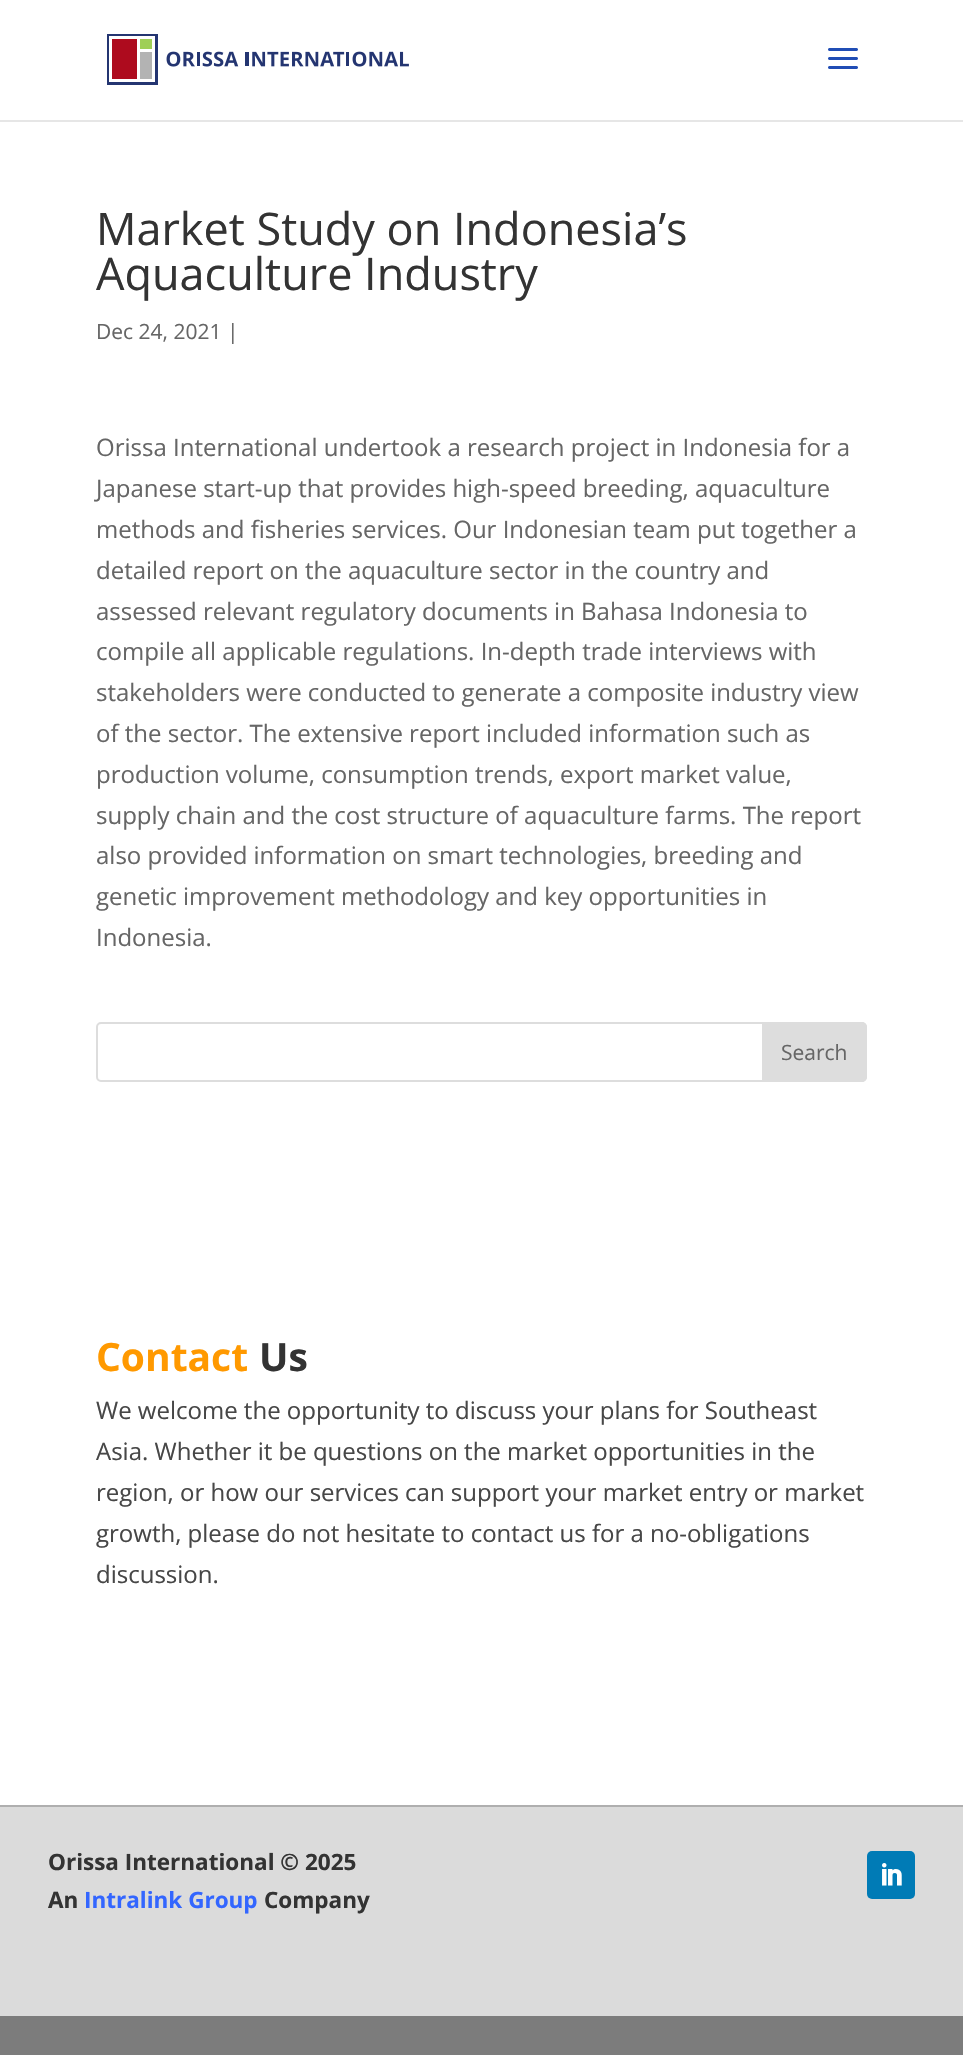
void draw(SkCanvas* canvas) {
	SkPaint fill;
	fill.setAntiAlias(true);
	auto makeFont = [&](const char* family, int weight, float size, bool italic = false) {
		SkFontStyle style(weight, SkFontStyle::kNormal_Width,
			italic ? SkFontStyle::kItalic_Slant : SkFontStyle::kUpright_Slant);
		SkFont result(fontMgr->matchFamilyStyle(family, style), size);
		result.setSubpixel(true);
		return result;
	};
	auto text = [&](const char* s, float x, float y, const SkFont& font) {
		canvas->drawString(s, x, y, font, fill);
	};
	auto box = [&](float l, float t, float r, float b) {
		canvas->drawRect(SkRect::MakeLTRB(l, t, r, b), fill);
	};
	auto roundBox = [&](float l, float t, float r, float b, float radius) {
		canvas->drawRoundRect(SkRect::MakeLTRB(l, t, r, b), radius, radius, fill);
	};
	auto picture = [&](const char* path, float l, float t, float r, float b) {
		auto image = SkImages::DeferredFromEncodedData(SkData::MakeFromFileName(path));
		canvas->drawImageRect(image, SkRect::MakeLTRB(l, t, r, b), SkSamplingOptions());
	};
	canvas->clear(0xFF7C7C7C);
	fill.setColor(0xFFE6E6E6);
	box(0, 120, 963, 122);
	fill.setColor(0xFFFFFFFF);
	box(0, 0, 963, 120);
	picture("image0.png", 107, 34, 409, 85);
	picture("image1.png", 828, 48, 858, 69);
	box(0, 122, 963, 1805);
	fill.setStyle(SkPaint::kStroke_Style);
	fill.setStrokeWidth(2);
	fill.setColor(0xFFDDDDDD);
	canvas->drawRoundRect(SkRect::MakeLTRB(97, 1023, 866, 1081), 4, 4, fill);
	fill.setStyle(SkPaint::kFill_Style);
	canvas->drawPath(SkPathBuilder().moveTo(763, 1023).lineTo(862, 1023).cubicTo(864, 1023, 866, 1025, 866, 1027).lineTo(866, 1077).cubicTo(866, 1079, 864, 1081, 862, 1081).lineTo(763, 1081).close().detach(), fill);
	fill.setStyle(SkPaint::kStroke_Style);
	canvas->drawPath(SkPathBuilder().moveTo(763, 1023).lineTo(862, 1023).cubicTo(864, 1023, 866, 1025, 866, 1027).lineTo(866, 1077).cubicTo(866, 1079, 864, 1081, 862, 1081).lineTo(763, 1081).close().detach(), fill);
	fill.setStyle(SkPaint::kFill_Style);
	fill.setColor(0xFFDBDBDB);
	box(0, 1807, 963, 2016);
	fill.setColor(0xFFAFAFAF);
	box(0, 1805, 963, 1807);
	fill.setColor(0xFF007BB6);
	roundBox(867, 1851, 915, 1899, 5);
	picture("image2.png", 882, 1863, 902, 1886);
	auto font1 = makeFont("Open Sans", 400, 45);
	fill.setColor(0xFF333333);
	text("Market Study on Indonesia’s", 96, 245, font1);
	text("Aquaculture Industry", 96, 290, font1);
	auto font2 = makeFont("Open Sans", 400, 21);
	fill.setColor(0xFF666666);
	text("Dec 24, 2021 |", 96, 339, font2);
	auto font3 = makeFont("Open Sans", 400, 24);
	text("Orissa International undertook a research project in Indonesia for a", 96, 456, font3);
	text("Japanese start-up that provides high-speed breeding, aquaculture", 96, 497, font3);
	text("methods and fisheries services. Our Indonesian team put together a", 96, 538, font3);
	text("detailed report on the aquaculture sector in the country and", 96, 579, font3);
	text("assessed relevant regulatory documents in Bahasa Indonesia to", 96, 620, font3);
	text("compile all applicable regulations. In-depth trade interviews with", 96, 660, font3);
	text("stakeholders were conducted to generate a composite industry view", 96, 701, font3);
	text("of the sector. The extensive report included information such as", 96, 742, font3);
	text("production volume, consumption trends, export market value,", 96, 783, font3);
	text("supply chain and the cost structure of aquaculture farms. The report", 96, 824, font3);
	text("also provided information on smart technologies, breeding and", 96, 864, font3);
	text("genetic improvement methodology and key opportunities in", 96, 905, font3);
	text("Indonesia.", 96, 946, font3);
	text("Search", 781, 1060, font2);
	auto font4 = makeFont("Open Sans", 700, 39);
	fill.setColor(0xFFFF9900);
	text("Contact", 96, 1371, font4);
	fill.setColor(0xFF333333);
	text("Us", 259, 1371, font4);
	fill.setColor(0xFF474747);
	text("We welcome the opportunity to discuss your plans for Southeast", 96, 1419, font3);
	text("Asia. Whether it be questions on the market opportunities in the", 96, 1460, font3);
	text("region, or how our services can support your market entry or market", 96, 1501, font3);
	text("growth, please do not hesitate to contact us for a no-obligations", 96, 1542, font3);
	text("discussion.", 96, 1583, font3);
	auto font5 = makeFont("Open Sans", 700, 22.5f);
	fill.setColor(0xFF333333);
	text("Orissa International © 2025", 48, 1870, font5);
	text("An", 48, 1908, font5);
	fill.setColor(0xFF3366FF);
	text("Intralink Group", 84, 1908, font5);
	fill.setColor(0xFF333333);
	text("Company", 264, 1908, font5);
}
